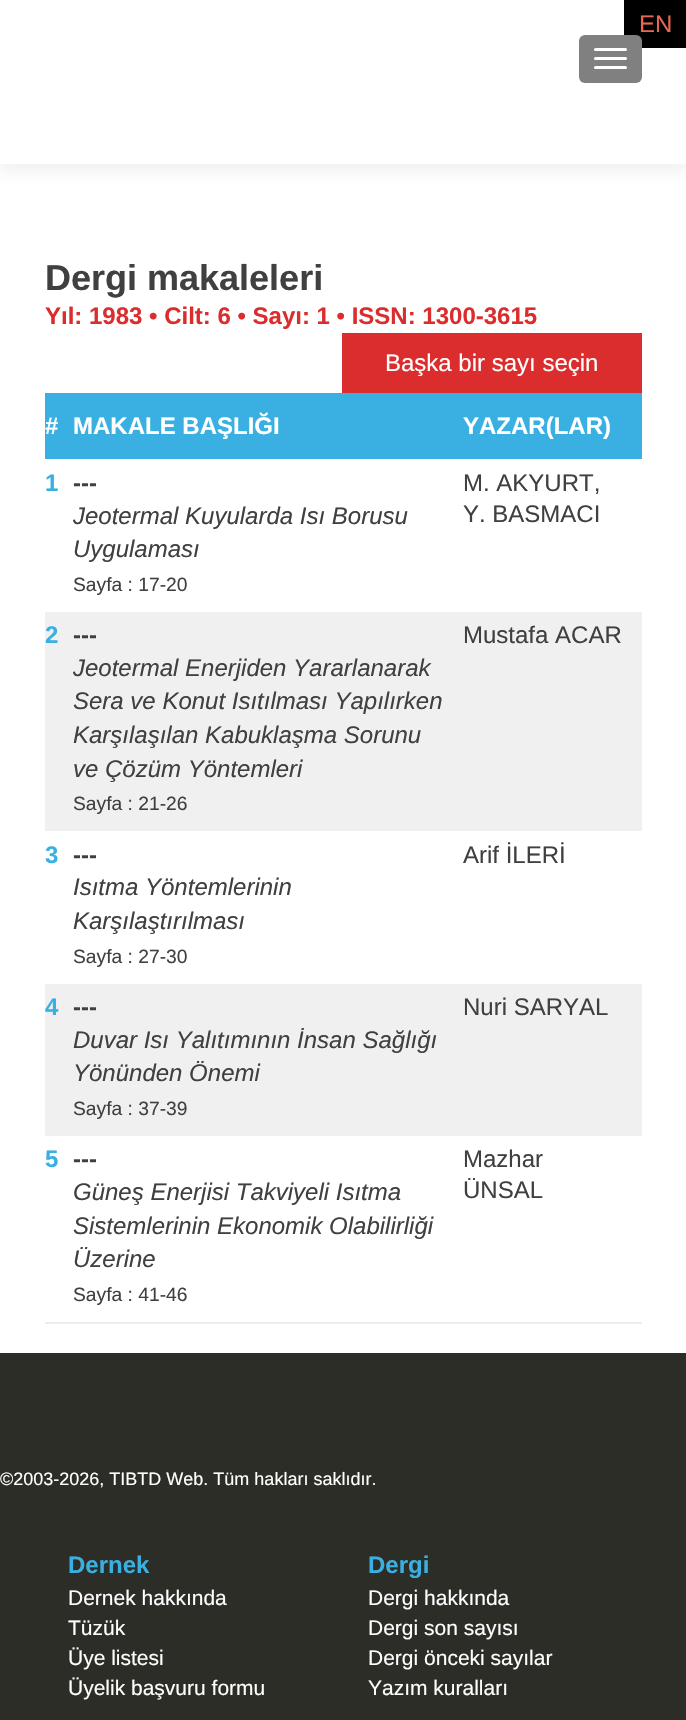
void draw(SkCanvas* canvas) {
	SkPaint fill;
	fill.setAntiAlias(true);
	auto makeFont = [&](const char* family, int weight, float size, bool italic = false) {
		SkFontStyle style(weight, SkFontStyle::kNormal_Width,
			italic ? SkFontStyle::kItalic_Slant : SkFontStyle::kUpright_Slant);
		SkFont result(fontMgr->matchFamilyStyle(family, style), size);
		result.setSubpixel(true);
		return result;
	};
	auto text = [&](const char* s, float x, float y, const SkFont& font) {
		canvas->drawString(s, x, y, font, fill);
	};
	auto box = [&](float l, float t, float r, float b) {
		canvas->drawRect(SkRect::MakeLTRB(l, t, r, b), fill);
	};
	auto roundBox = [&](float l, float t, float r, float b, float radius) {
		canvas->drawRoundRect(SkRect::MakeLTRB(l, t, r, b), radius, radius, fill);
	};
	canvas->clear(0xFFFFFFFF);
	canvas->save();
	canvas->clipPath(SkPathBuilder(SkPathFillType::kEvenOdd).moveTo(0, 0).lineTo(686, 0).lineTo(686, 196).lineTo(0, 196).close().moveTo(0, 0).lineTo(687, 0).lineTo(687, 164).lineTo(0, 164).close().detach(), true);
	fill.setColor(0x14323232);
	fill.setMaskFilter(SkMaskFilter::MakeBlur(kNormal_SkBlurStyle, 8));
	canvas->drawRect(SkRect::MakeLTRB(0, 8, 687, 171), fill);
	fill.setMaskFilter(nullptr);
	canvas->restore();
	fill.setColor(0xFF000000);
	box(624, 0, 686, 48);
	fill.setColor(0xFF808080);
	roundBox(579, 35, 642, 83, 6);
	fill.setColor(0xFFFFFFFF);
	roundBox(594, 48, 627, 51, 1.5f);
	roundBox(594, 57, 627, 60, 1.5f);
	roundBox(594, 66, 627, 69, 1.5f);
	fill.setColor(0xFFDB2D2D);
	box(342, 333, 642, 393);
	fill.setColor(0xFFEDEDED);
	box(45, 1322, 642, 1324);
	fill.setColor(0xFF3AB0E2);
	box(45, 393, 642, 459);
	fill.setColor(0xFFF0F0F0);
	box(45, 612, 642, 831);
	box(45, 984, 642, 1136);
	fill.setColor(0xFF2D2D28);
	box(0, 1353, 686, 1720);
	auto font1 = makeFont("Liberation Sans", 400, 24);
	fill.setColor(0xFFE96656);
	text("EN", 639, 32, font1);
	auto font2 = makeFont("Liberation Sans", 700, 36);
	fill.setColor(0xFF404040);
	text("Dergi makaleleri", 45, 290, font2);
	auto font3 = makeFont("Liberation Sans", 700, 24);
	fill.setColor(0xFFDB2D2D);
	text("Yıl: 1983 • Cilt: 6 • Sayı: 1 • ISSN: 1300-3615", 45, 324, font3);
	fill.setColor(0xFFFFFFFF);
	text("Başka bir sayı seçin", 385, 371, font1);
	text("#", 45, 434, font3);
	text("MAKALE BAŞLIĞI", 73, 434, font3);
	text("YAZAR(LAR)", 463, 434, font3);
	fill.setColor(0xFF3AB0E2);
	text("1", 45, 491, font3);
	fill.setColor(0xFF404040);
	text("---", 73, 491, font3);
	auto font4 = makeFont("Liberation Sans", 400, 24, true);
	text("Jeotermal Kuyularda Isı Borusu", 73, 524, font4);
	text("Uygulaması", 73, 557, font4);
	auto font5 = makeFont("Liberation Sans", 400, 19.25f);
	text("Sayfa : 17-20", 73, 591, font5);
	text("M. AKYURT,", 463, 491, font1);
	text("Y. BASMACI", 463, 522, font1);
	fill.setColor(0xFF3AB0E2);
	text("2", 45, 643, font3);
	fill.setColor(0xFF404040);
	text("---", 73, 643, font3);
	text("Jeotermal Enerjiden Yararlanarak", 73, 676, font4);
	text("Sera ve Konut Isıtılması Yapılırken", 73, 709, font4);
	text("Karşılaşılan Kabuklaşma Sorunu", 73, 743, font4);
	text("ve Çözüm Yöntemleri", 73, 777, font4);
	text("Sayfa : 21-26", 73, 810, font5);
	text("Mustafa ACAR", 463, 643, font1);
	fill.setColor(0xFF3AB0E2);
	text("3", 45, 863, font3);
	fill.setColor(0xFF404040);
	text("---", 73, 863, font3);
	text("Isıtma Yöntemlerinin", 73, 895, font4);
	text("Karşılaştırılması", 73, 929, font4);
	text("Sayfa : 27-30", 73, 963, font5);
	text("Arif İLERİ", 463, 863, font1);
	fill.setColor(0xFF3AB0E2);
	text("4", 45, 1015, font3);
	fill.setColor(0xFF404040);
	text("---", 73, 1015, font3);
	text("Duvar Isı Yalıtımının İnsan Sağlığı", 73, 1048, font4);
	text("Yönünden Önemi", 73, 1081, font4);
	text("Sayfa : 37-39", 73, 1115, font5);
	text("Nuri SARYAL", 463, 1015, font1);
	fill.setColor(0xFF3AB0E2);
	text("5", 45, 1167, font3);
	fill.setColor(0xFF404040);
	text("---", 73, 1167, font3);
	text("Güneş Enerjisi Takviyeli Isıtma", 73, 1200, font4);
	text("Sistemlerinin Ekonomik Olabilirliği", 73, 1234, font4);
	text("Üzerine", 73, 1267, font4);
	text("Sayfa : 41-46", 73, 1301, font5);
	text("Mazhar", 463, 1167, font1);
	text("ÜNSAL", 463, 1198, font1);
	auto font6 = makeFont("Liberation Sans", 400, 18);
	fill.setColor(0xFFFFFFFF);
	text("©2003-2026, TIBTD Web. Tüm hakları saklıdır.", 0, 1485, font6);
	fill.setColor(0xFF3AB0E2);
	text("Dernek", 68, 1573, font3);
	auto font7 = makeFont("Liberation Sans", 400, 21);
	fill.setColor(0xFFFFFFFF);
	text("Dernek hakkında", 68, 1605, font7);
	text("Tüzük", 68, 1635, font7);
	text("Üye listesi", 68, 1665, font7);
	text("Üyelik başvuru formu", 68, 1695, font7);
	fill.setColor(0xFF3AB0E2);
	text("Dergi", 368, 1573, font3);
	fill.setColor(0xFFFFFFFF);
	text("Dergi hakkında", 368, 1605, font7);
	text("Dergi son sayısı", 368, 1635, font7);
	text("Dergi önceki sayılar", 368, 1665, font7);
	text("Yazım kuralları", 368, 1695, font7);
}
